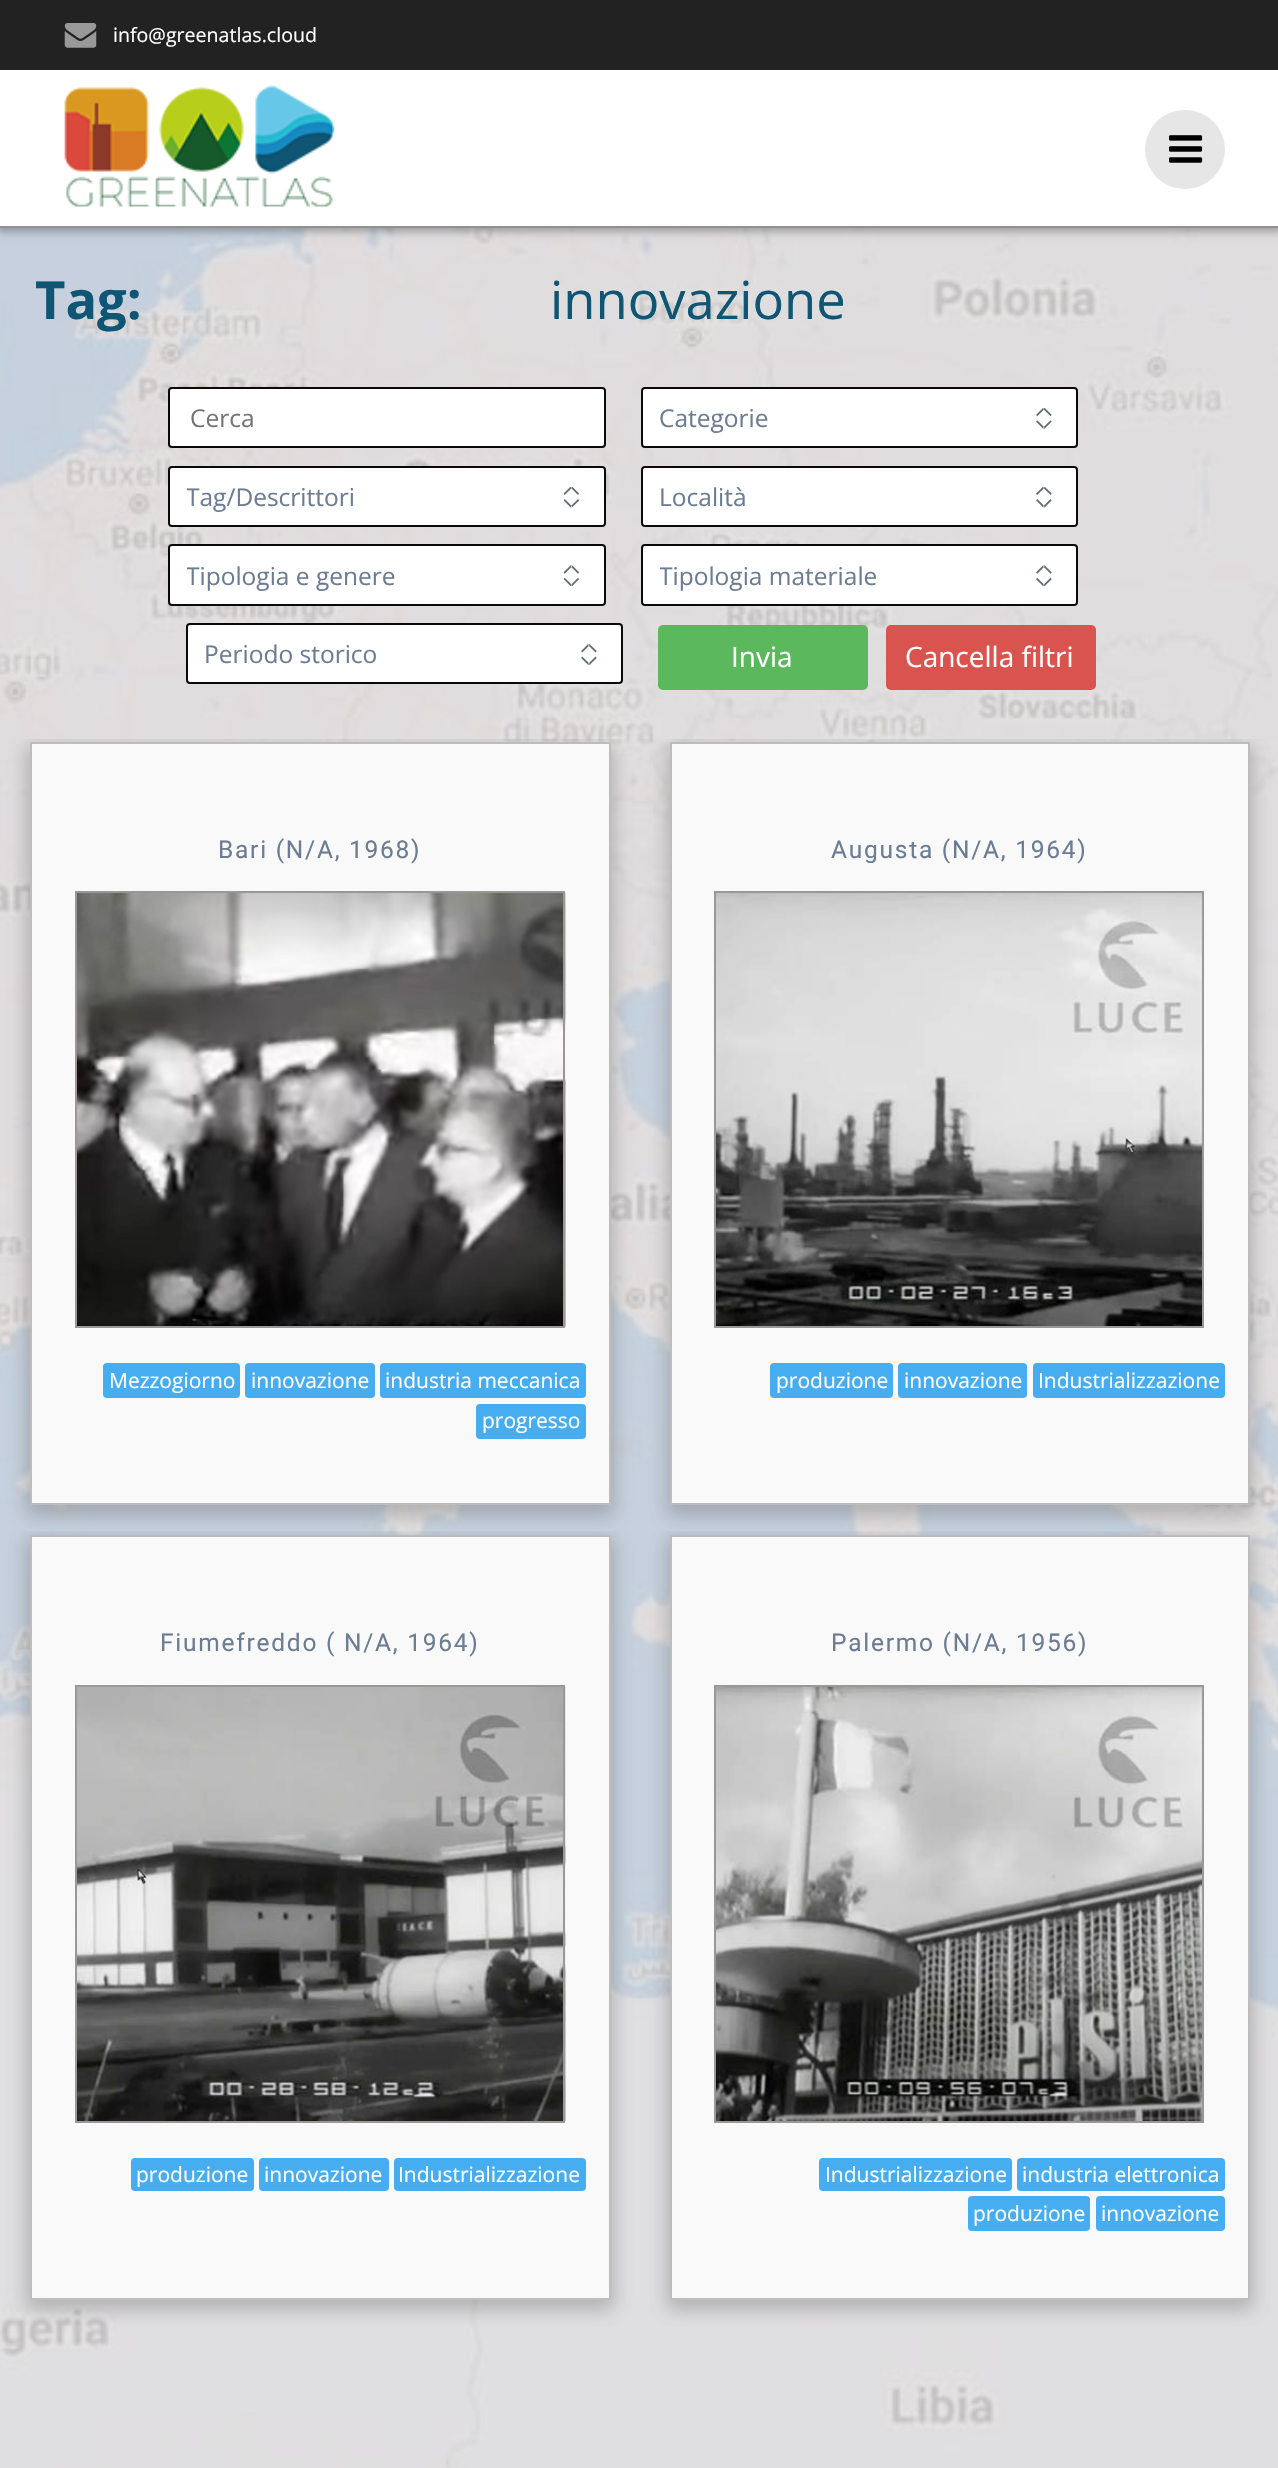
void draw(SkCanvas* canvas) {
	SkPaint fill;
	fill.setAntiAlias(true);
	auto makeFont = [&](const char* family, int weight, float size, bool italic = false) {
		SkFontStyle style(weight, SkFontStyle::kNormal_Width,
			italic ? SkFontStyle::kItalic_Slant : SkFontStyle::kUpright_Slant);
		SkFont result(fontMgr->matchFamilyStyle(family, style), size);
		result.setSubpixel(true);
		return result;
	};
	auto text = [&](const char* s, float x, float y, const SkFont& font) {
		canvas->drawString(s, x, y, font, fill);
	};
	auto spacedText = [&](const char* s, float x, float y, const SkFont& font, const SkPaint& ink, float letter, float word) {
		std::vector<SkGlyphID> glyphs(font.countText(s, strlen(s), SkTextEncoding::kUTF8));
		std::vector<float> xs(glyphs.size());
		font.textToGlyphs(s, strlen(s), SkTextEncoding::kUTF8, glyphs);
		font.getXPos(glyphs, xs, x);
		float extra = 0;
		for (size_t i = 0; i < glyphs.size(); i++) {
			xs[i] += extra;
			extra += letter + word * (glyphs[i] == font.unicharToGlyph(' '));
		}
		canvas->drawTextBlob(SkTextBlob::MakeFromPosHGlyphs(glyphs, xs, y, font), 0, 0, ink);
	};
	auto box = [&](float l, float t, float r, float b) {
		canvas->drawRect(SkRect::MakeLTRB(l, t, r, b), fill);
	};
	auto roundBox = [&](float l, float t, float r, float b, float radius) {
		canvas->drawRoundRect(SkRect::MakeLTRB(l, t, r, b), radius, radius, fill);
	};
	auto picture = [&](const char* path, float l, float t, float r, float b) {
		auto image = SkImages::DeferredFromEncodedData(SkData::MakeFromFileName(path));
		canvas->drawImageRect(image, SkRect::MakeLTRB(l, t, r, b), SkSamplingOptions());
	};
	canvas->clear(0xFFFFFFFF);
	picture("image3.png", 0, 228, 1278, 2468);
	fill.setColor(0x54000000);
	fill.setMaskFilter(SkMaskFilter::MakeBlur(kNormal_SkBlurStyle, 4.5f));
	canvas->drawRect(SkRect::MakeLTRB(-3, 67, 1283, 231), fill);
	fill.setMaskFilter(nullptr);
	fill.setColor(0xFF222222);
	box(0, 0, 1278, 70);
	picture("image0.png", 64, 23, 97, 48);
	fill.setColor(0xFFFFFFFF);
	box(0, 70, 1278, 226);
	fill.setColor(0xFF919191);
	box(0, 226, 1278, 228);
	picture("image1.png", 64, 85, 335, 207);
	fill.setColor(0xFFE6E6E6);
	roundBox(1145, 110, 1225, 189, 39.5f);
	picture("image2.png", 1169, 135, 1203, 163);
	fill.setColor(0xFFFFFFFF);
	canvas->drawRoundRect(SkRect::MakeLTRB(169, 388, 605, 447), 3, 3, fill);
	fill.setStyle(SkPaint::kStroke_Style);
	fill.setStrokeWidth(2);
	fill.setColor(0xFF090909);
	canvas->drawRoundRect(SkRect::MakeLTRB(169, 388, 605, 447), 3, 3, fill);
	fill.setStyle(SkPaint::kFill_Style);
	fill.setColor(0xFFFFFFFF);
	roundBox(641, 387, 1078, 448, 4);
	picture("image4.png", 1036, 408, 1052, 429);
	fill.setStyle(SkPaint::kStroke_Style);
	fill.setColor(0xFF090909);
	canvas->drawRoundRect(SkRect::MakeLTRB(642, 388, 1077, 447), 3, 3, fill);
	fill.setStyle(SkPaint::kFill_Style);
	fill.setColor(0xFFFFFFFF);
	roundBox(168, 466, 606, 527, 4);
	picture("image5.png", 564, 487, 579, 508);
	fill.setStyle(SkPaint::kStroke_Style);
	fill.setColor(0xFF090909);
	canvas->drawRoundRect(SkRect::MakeLTRB(169, 467, 605, 526), 3, 3, fill);
	fill.setStyle(SkPaint::kFill_Style);
	fill.setColor(0xFFFFFFFF);
	roundBox(641, 466, 1078, 527, 4);
	picture("image6.png", 1036, 487, 1052, 508);
	fill.setStyle(SkPaint::kStroke_Style);
	fill.setColor(0xFF090909);
	canvas->drawRoundRect(SkRect::MakeLTRB(642, 467, 1077, 526), 3, 3, fill);
	fill.setStyle(SkPaint::kFill_Style);
	fill.setColor(0xFFFFFFFF);
	roundBox(168, 544, 606, 606, 4);
	picture("image7.png", 564, 565, 579, 586);
	fill.setStyle(SkPaint::kStroke_Style);
	fill.setColor(0xFF090909);
	canvas->drawRoundRect(SkRect::MakeLTRB(169, 545, 605, 605), 3, 3, fill);
	fill.setStyle(SkPaint::kFill_Style);
	fill.setColor(0xFFFFFFFF);
	roundBox(641, 544, 1078, 606, 4);
	picture("image8.png", 1036, 565, 1052, 586);
	fill.setStyle(SkPaint::kStroke_Style);
	fill.setColor(0xFF090909);
	canvas->drawRoundRect(SkRect::MakeLTRB(642, 545, 1077, 605), 3, 3, fill);
	fill.setStyle(SkPaint::kFill_Style);
	fill.setColor(0xFFFFFFFF);
	roundBox(186, 623, 623, 684, 4);
	picture("image9.png", 581, 644, 597, 665);
	fill.setStyle(SkPaint::kStroke_Style);
	fill.setColor(0xFF090909);
	canvas->drawRoundRect(SkRect::MakeLTRB(187, 624, 622, 683), 3, 3, fill);
	fill.setStyle(SkPaint::kFill_Style);
	fill.setColor(0xFF5CB85C);
	roundBox(658, 625, 868, 690, 5);
	fill.setColor(0xFFD9534F);
	roundBox(886, 625, 1096, 690, 5);
	canvas->save();
	canvas->clipRect(SkRect::MakeLTRB(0, 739, 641, 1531));
	fill.setColor(0x4D4A4A4A);
	fill.setMaskFilter(SkMaskFilter::MakeBlur(kNormal_SkBlurStyle, 9));
	canvas->drawRect(SkRect::MakeLTRB(26, 746, 614, 1516), fill);
	fill.setMaskFilter(nullptr);
	canvas->restore();
	fill.setColor(0xFFF9F9F9);
	canvas->drawRect(SkRect::MakeLTRB(31, 743, 610, 1504), fill);
	fill.setStyle(SkPaint::kStroke_Style);
	fill.setColor(0xFFBDBDBD);
	canvas->drawRect(SkRect::MakeLTRB(31, 743, 610, 1504), fill);
	picture("image10.png", 77, 892, 566, 1327);
	fill.setColor(0xFF9B9797);
	canvas->drawRect(SkRect::MakeLTRB(76, 892, 564, 1327), fill);
	fill.setStyle(SkPaint::kFill_Style);
	fill.setColor(0xFF46ADF0);
	roundBox(103, 1363, 240, 1398, 4);
	roundBox(245, 1363, 375, 1398, 4);
	roundBox(380, 1363, 586, 1398, 4);
	roundBox(476, 1404, 586, 1439, 4);
	canvas->save();
	canvas->clipRect(SkRect::MakeLTRB(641, 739, 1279, 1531));
	fill.setColor(0x4D4A4A4A);
	fill.setMaskFilter(SkMaskFilter::MakeBlur(kNormal_SkBlurStyle, 9));
	canvas->drawRect(SkRect::MakeLTRB(667, 746, 1253, 1516), fill);
	fill.setMaskFilter(nullptr);
	canvas->restore();
	fill.setColor(0xFFF9F9F9);
	canvas->drawRect(SkRect::MakeLTRB(671, 743, 1249, 1504), fill);
	fill.setStyle(SkPaint::kStroke_Style);
	fill.setColor(0xFFBDBDBD);
	canvas->drawRect(SkRect::MakeLTRB(671, 743, 1249, 1504), fill);
	picture("image11.png", 716, 893, 1202, 1326);
	fill.setColor(0xFF9B9797);
	canvas->drawRect(SkRect::MakeLTRB(715, 892, 1203, 1327), fill);
	fill.setStyle(SkPaint::kFill_Style);
	fill.setColor(0xFF46ADF0);
	roundBox(770, 1363, 893, 1398, 4);
	roundBox(898, 1363, 1027, 1398, 4);
	roundBox(1033, 1363, 1225, 1398, 4);
	canvas->save();
	canvas->clipRect(SkRect::MakeLTRB(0, 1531, 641, 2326));
	fill.setColor(0x4D4A4A4A);
	fill.setMaskFilter(SkMaskFilter::MakeBlur(kNormal_SkBlurStyle, 9));
	canvas->drawRect(SkRect::MakeLTRB(26, 1538, 614, 2310), fill);
	fill.setMaskFilter(nullptr);
	canvas->restore();
	fill.setColor(0xFFF9F9F9);
	canvas->drawRect(SkRect::MakeLTRB(31, 1536, 610, 2299), fill);
	fill.setStyle(SkPaint::kStroke_Style);
	fill.setColor(0xFFBDBDBD);
	canvas->drawRect(SkRect::MakeLTRB(31, 1536, 610, 2299), fill);
	picture("image12.png", 77, 1687, 566, 2121);
	fill.setColor(0xFF9B9797);
	canvas->drawRect(SkRect::MakeLTRB(76, 1686, 564, 2122), fill);
	fill.setStyle(SkPaint::kFill_Style);
	fill.setColor(0xFF46ADF0);
	roundBox(131, 2158, 254, 2191, 4);
	roundBox(259, 2158, 389, 2191, 4);
	roundBox(394, 2158, 586, 2191, 4);
	canvas->save();
	canvas->clipRect(SkRect::MakeLTRB(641, 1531, 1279, 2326));
	fill.setColor(0x4D4A4A4A);
	fill.setMaskFilter(SkMaskFilter::MakeBlur(kNormal_SkBlurStyle, 9));
	canvas->drawRect(SkRect::MakeLTRB(667, 1538, 1253, 2310), fill);
	fill.setMaskFilter(nullptr);
	canvas->restore();
	fill.setColor(0xFFF9F9F9);
	canvas->drawRect(SkRect::MakeLTRB(671, 1536, 1249, 2299), fill);
	fill.setStyle(SkPaint::kStroke_Style);
	fill.setColor(0xFFBDBDBD);
	canvas->drawRect(SkRect::MakeLTRB(671, 1536, 1249, 2299), fill);
	picture("image13.png", 716, 1687, 1202, 2121);
	fill.setColor(0xFF9B9797);
	canvas->drawRect(SkRect::MakeLTRB(715, 1686, 1203, 2122), fill);
	fill.setStyle(SkPaint::kFill_Style);
	fill.setColor(0xFF46ADF0);
	roundBox(819, 2158, 1012, 2191, 4);
	roundBox(1017, 2158, 1225, 2191, 4);
	roundBox(968, 2196, 1090, 2231, 4);
	roundBox(1096, 2196, 1225, 2231, 4);
	auto font1 = makeFont("Open Sans", 400, 19.6f);
	fill.setColor(0xFFFFFFFF);
	text("info@greenatlas.cloud", 113, 42, font1);
	auto font2 = makeFont("Open Sans", 700, 52.5f);
	fill.setColor(0xFF0F5574);
	text("Tag:", 35, 319, font2);
	auto font3 = makeFont("Open Sans", 400, 52.5f);
	text("innovazione", 550, 319, font3);
	auto font4 = makeFont("Open Sans", 400, 24.5f);
	fill.setColor(0xFF757575);
	text("Cerca", 190, 427, font4);
	fill.setColor(0xFF6B7C93);
	text("Categorie", 659, 427, font4);
	canvas->save();
	canvas->clipRect(SkRect::MakeLTRB(187, 478, 586, 515));
	text("Tag/Descrittori", 186, 506, font4);
	canvas->restore();
	text("Località", 659, 506, font4);
	canvas->save();
	canvas->clipRect(SkRect::MakeLTRB(187, 557, 586, 593));
	text("Tipologia e genere", 186, 585, font4);
	canvas->restore();
	canvas->save();
	canvas->clipRect(SkRect::MakeLTRB(660, 557, 1059, 593));
	text("Tipologia materiale", 659, 585, font4);
	canvas->restore();
	text("Periodo storico", 204, 663, font4);
	auto font5 = makeFont("Open Sans", 400, 28);
	fill.setColor(0xFFFFFFFF);
	text("Invia", 731, 667, font5);
	text("Cancella filtri", 905, 667, font5);
	auto font6 = makeFont("Roboto", 400, 24.5f);
	fill.setColor(0xFF6B7C93);
	spacedText("Bari (N/A, 1968)", 218, 858, font6, fill, 1.75f, 0);
	auto font7 = makeFont("Open Sans", 400, 21);
	fill.setColor(0xFFFFFFFF);
	text("Mezzogiorno", 109, 1388, font7);
	text("innovazione", 251, 1388, font7);
	text("industria meccanica", 385, 1388, font7);
	text("progresso", 482, 1428, font7);
	fill.setColor(0xFF6B7C93);
	spacedText("Augusta (N/A, 1964)", 831, 858, font6, fill, 1.75f, 0);
	fill.setColor(0xFFFFFFFF);
	text("produzione", 776, 1388, font7);
	text("innovazione", 904, 1388, font7);
	text("Industrializzazione", 1038, 1388, font7);
	fill.setColor(0xFF6B7C93);
	spacedText("Fiumefreddo ( N/A, 1964)", 160, 1651, font6, fill, 1.75f, 0);
	fill.setColor(0xFFFFFFFF);
	text("produzione", 136, 2182, font7);
	text("innovazione", 264, 2182, font7);
	text("Industrializzazione", 398, 2182, font7);
	fill.setColor(0xFF6B7C93);
	spacedText("Palermo (N/A, 1956)", 831, 1651, font6, fill, 1.75f, 0);
	fill.setColor(0xFFFFFFFF);
	text("Industrializzazione", 825, 2182, font7);
	text("industria elettronica", 1022, 2182, font7);
	text("produzione", 973, 2221, font7);
	text("innovazione", 1101, 2221, font7);
}
